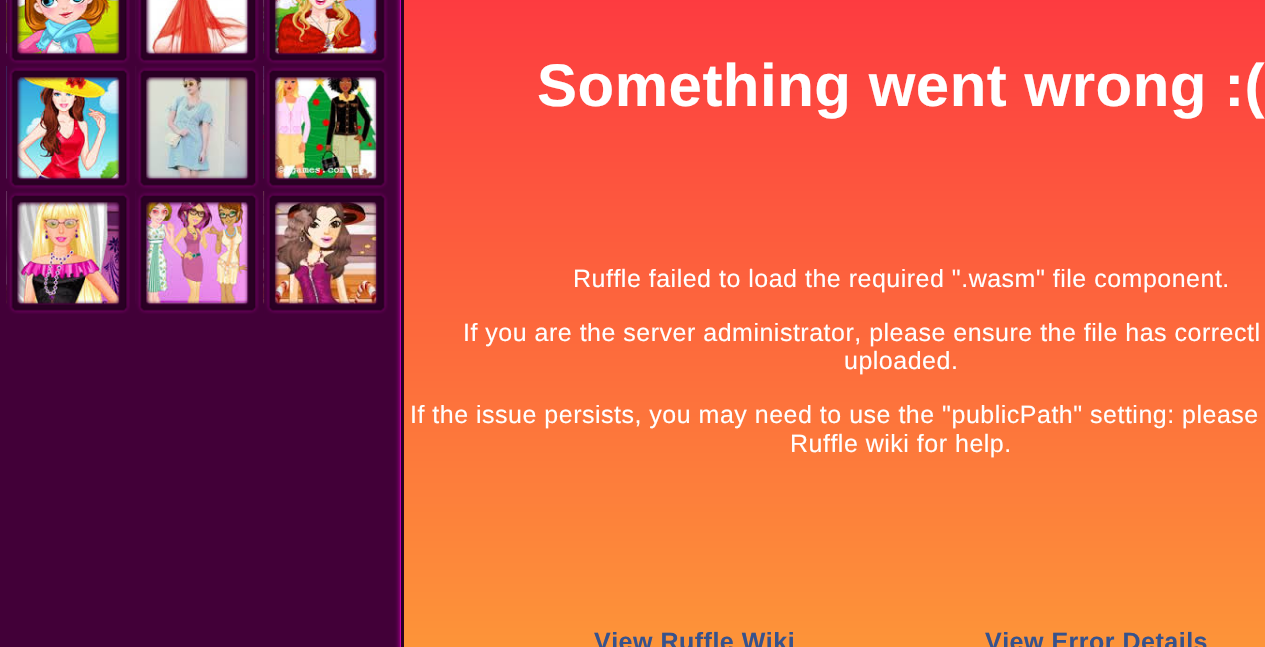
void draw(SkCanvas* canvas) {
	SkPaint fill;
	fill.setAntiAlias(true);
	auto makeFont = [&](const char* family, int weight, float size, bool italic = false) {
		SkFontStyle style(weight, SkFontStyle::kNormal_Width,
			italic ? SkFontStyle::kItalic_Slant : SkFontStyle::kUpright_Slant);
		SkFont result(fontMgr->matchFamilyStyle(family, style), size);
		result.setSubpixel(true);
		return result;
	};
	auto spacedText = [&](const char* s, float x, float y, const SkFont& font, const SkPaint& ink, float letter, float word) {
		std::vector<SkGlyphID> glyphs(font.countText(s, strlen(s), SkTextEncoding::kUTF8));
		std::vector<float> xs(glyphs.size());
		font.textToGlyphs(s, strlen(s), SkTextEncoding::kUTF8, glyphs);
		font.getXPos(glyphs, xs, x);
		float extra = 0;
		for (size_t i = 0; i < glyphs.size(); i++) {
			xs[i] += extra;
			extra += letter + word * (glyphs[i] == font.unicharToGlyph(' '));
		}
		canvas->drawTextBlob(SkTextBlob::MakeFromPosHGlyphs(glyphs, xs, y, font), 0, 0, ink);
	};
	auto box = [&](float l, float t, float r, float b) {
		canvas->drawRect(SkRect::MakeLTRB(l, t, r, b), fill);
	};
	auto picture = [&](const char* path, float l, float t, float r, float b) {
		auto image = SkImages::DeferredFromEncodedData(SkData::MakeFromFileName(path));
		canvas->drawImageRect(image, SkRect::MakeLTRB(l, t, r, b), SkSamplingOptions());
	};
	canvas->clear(0xFF420038);
	picture("image0.png", 6, 0, 119, 54);
	picture("image1.png", 6, 0, 130, 64);
	picture("image2.png", 135, 0, 248, 54);
	picture("image3.png", 135, 0, 259, 64);
	picture("image4.png", 263, 0, 377, 54);
	picture("image5.png", 263, 0, 388, 64);
	picture("image6.png", 6, 66, 119, 179);
	picture("image7.png", 6, 66, 130, 189);
	picture("image8.png", 135, 66, 248, 179);
	picture("image9.png", 135, 66, 259, 189);
	picture("image10.png", 263, 66, 377, 179);
	picture("image11.png", 263, 66, 388, 189);
	picture("image12.png", 6, 191, 119, 304);
	picture("image13.png", 6, 191, 130, 314);
	picture("image14.png", 135, 191, 248, 304);
	picture("image15.png", 135, 191, 259, 314);
	picture("image16.png", 263, 191, 377, 304);
	picture("image17.png", 263, 191, 388, 314);
	fill.setColor(0xFFC800AB);
	fill.setMaskFilter(SkMaskFilter::MakeBlur(kNormal_SkBlurStyle, 2.5f));
	canvas->drawRoundRect(SkRect::MakeLTRB(400, -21, 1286, 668), 13, 13, fill);
	fill.setMaskFilter(nullptr);
	fill.setColor(0xFF2A0024);
	box(401, 0, 404, 647);
	fill.setColor(0xFFC800AB);
	canvas->drawPath(SkPathBuilder().moveTo(413, -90).cubicTo(406, -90, 400, -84, 400, -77).lineTo(400, 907).cubicTo(400, 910, 403, 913, 406, 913).lineTo(1259, 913).cubicTo(1260, 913, 1261, 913, 1262, 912).lineTo(406, 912).cubicTo(403, 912, 401, 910, 401, 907).lineTo(401, -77).cubicTo(401, -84, 406, -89, 413, -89).lineTo(1262, -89).lineTo(1259, -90).close().detach(), fill);
	{
		const SkColor colors[] = {0xFFFD3A40, 0xFFFDA138};
		const float stops[] = {0, 1};
		const SkPoint ends[] = {{901, -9}, {901, 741}};
		fill.setShader(SkGradientShader::MakeLinear(ends, colors, stops, 2, SkTileMode::kClamp));
		fill.setAlpha(255);
	}
	box(404, 0, 1265, 647);
	auto font1 = makeFont("Liberation Sans", 700, 60);
	fill.setShader(nullptr);
	fill.setColor(0xFFFFFFFF);
	spacedText("Something went wrong :(", 537, 106, font1, fill, 0.5f, 0);
	auto font2 = makeFont("Liberation Sans", 400, 25);
	spacedText("Ruffle failed to load the required \".wasm\" file component.", 573, 287, font2, fill, 0.5f, 0);
	spacedText("If you are the server administrator, please ensure the file has correctl", 463, 341, font2, fill, 0.5f, 0);
	spacedText("uploaded.", 844, 369, font2, fill, 0.5f, 0);
	spacedText("If the issue persists, you may need to use the \"publicPath\" setting: please", 410, 423, font2, fill, 0.5f, 0);
	spacedText("Ruffle wiki for help.", 790, 452, font2, fill, 0.5f, 0);
	auto font3 = makeFont("Liberation Sans", 700, 25);
	fill.setColor(0xFF37528C);
	spacedText("View Ruffle Wiki", 594, 650, font3, fill, 0.5f, 0);
	spacedText("View Error Details", 985, 650, font3, fill, 0.5f, 0);
}
